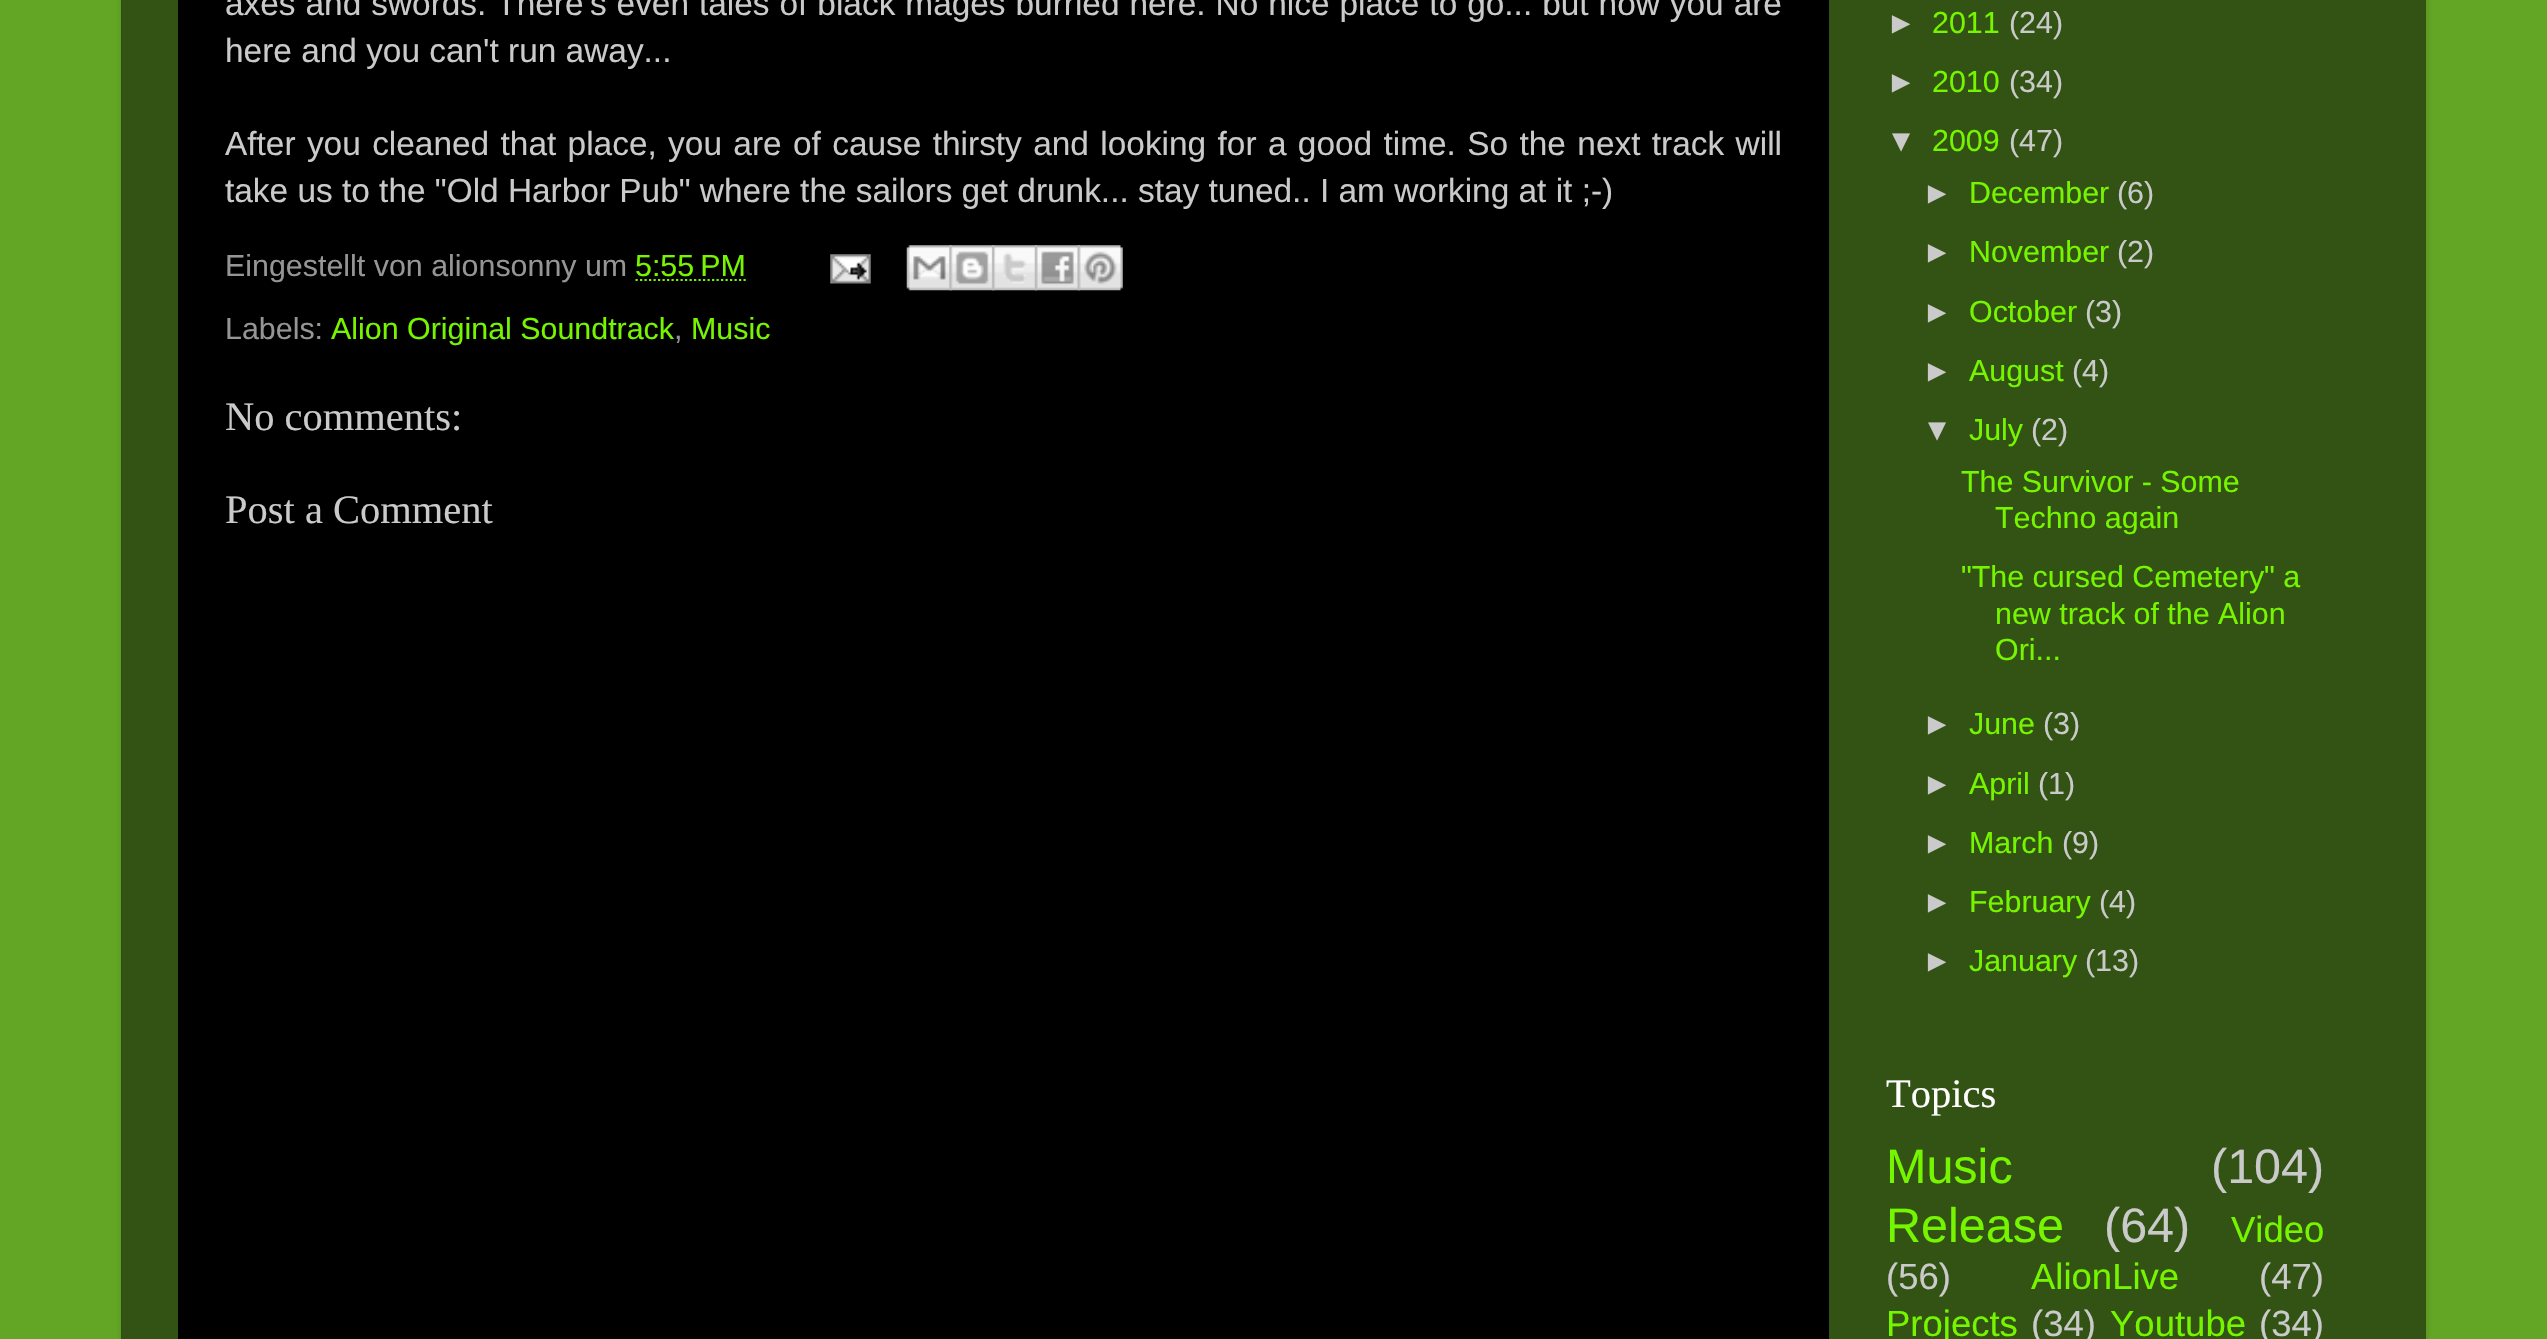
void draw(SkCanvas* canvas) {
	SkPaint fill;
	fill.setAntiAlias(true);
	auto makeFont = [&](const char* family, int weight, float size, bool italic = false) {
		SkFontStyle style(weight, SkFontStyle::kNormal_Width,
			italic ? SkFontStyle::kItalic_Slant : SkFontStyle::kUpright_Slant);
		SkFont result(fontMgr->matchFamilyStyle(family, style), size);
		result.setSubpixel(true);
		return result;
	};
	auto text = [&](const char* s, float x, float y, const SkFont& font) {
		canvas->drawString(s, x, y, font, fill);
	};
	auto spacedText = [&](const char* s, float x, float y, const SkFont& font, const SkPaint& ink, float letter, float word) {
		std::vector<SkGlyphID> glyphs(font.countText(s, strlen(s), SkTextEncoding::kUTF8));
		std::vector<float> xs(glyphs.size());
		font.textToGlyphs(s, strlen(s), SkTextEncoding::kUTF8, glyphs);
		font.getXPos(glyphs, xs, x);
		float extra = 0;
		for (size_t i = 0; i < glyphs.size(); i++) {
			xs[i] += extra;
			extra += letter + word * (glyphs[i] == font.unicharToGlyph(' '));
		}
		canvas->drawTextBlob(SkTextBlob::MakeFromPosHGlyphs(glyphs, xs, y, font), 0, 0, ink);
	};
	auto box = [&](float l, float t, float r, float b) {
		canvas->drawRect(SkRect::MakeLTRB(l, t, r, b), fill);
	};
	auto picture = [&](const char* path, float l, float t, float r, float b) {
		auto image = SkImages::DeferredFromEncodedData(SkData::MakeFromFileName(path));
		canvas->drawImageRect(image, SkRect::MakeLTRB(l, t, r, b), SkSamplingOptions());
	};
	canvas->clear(0xFF63A625);
	canvas->save();
	canvas->clipPath(SkPathBuilder(SkPathFillType::kEvenOdd).moveTo(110, 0).lineTo(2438, 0).lineTo(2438, 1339).lineTo(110, 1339).close().moveTo(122, -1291).lineTo(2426, -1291).lineTo(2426, 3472).lineTo(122, 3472).close().detach(), true);
	fill.setColor(0x26000000);
	fill.setMaskFilter(SkMaskFilter::MakeBlur(kNormal_SkBlurStyle, 3.5f));
	canvas->drawRect(SkRect::MakeLTRB(122, -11, 2426, 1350), fill);
	fill.setMaskFilter(nullptr);
	canvas->restore();
	fill.setColor(0x80000000);
	box(121, 0, 2426, 1339);
	fill.setColor(0xFF000000);
	box(178, 0, 1829, 1339);
	fill.setStyle(SkPaint::kStroke_Style);
	fill.setStrokeWidth(2.2f);
	fill.setColor(0xFF76F500);
	fill.setPathEffect(SkDashPathEffect::Make({{2.25f, 2.25f}}, 0));
	canvas->drawPath(SkPathBuilder().moveTo(635.5f, 280).lineTo(746, 280).detach(), fill);
	fill.setPathEffect(nullptr);
	picture("image0.png", 830, 254, 871, 284);
	picture("image1.png", 906, 245, 952, 291);
	picture("image2.png", 949, 245, 995, 291);
	picture("image3.png", 992, 245, 1038, 291);
	picture("image4.png", 1035, 245, 1080, 291);
	picture("image5.png", 1077, 245, 1123, 291);
	auto font1 = makeFont("Liberation Sans", 400, 33.4f);
	fill.setStyle(SkPaint::kFill_Style);
	fill.setColor(0xFFCACACA);
	spacedText("axes and swords. There's even tales of black mages burried here. No nice place to go... but now you are", 225, 15, font1, fill, 0, 0.7f);
	text("here and you can't run away...", 225, 62, font1);
	spacedText("After you cleaned that place, you are of cause thirsty and looking for a good time. So the next track will", 225, 155, font1, fill, 0, 2.1f);
	text("take us to the \"Old Harbor Pub\" where the sailors get drunk... stay tuned.. I am working at it ;-)", 225, 202, font1);
	auto font2 = makeFont("Liberation Sans", 400, 30.4f);
	fill.setColor(0xFF959595);
	text("Eingestellt von alionsonny um", 225, 276, font2);
	fill.setColor(0xFF76F500);
	text("5:55 PM", 635, 276, font2);
	fill.setColor(0xFF959595);
	text("Labels:", 225, 339, font2);
	fill.setColor(0xFF76F500);
	text("Alion Original Soundtrack", 331, 339, font2);
	fill.setColor(0xFF959595);
	text(",", 674, 339, font2);
	fill.setColor(0xFF76F500);
	text("Music", 691, 339, font2);
	auto font3 = makeFont("Liberation Serif", 400, 40.5f);
	fill.setColor(0xFFCACACA);
	text("No comments:", 225, 430, font3);
	text("Post a Comment", 225, 523, font3);
	text("►", 1886, 33, font2);
	fill.setColor(0xFF76F500);
	text("2011", 1932, 33, font2);
	fill.setColor(0xFFCACACA);
	text("(24)", 2009, 33, font2);
	text("►", 1886, 92, font2);
	fill.setColor(0xFF76F500);
	text("2010", 1932, 92, font2);
	fill.setColor(0xFFCACACA);
	text("(34)", 2009, 92, font2);
	text("▼", 1886, 151, font2);
	fill.setColor(0xFF76F500);
	text("2009", 1932, 151, font2);
	fill.setColor(0xFFCACACA);
	text("(47)", 2009, 151, font2);
	text("►", 1922, 203, font2);
	fill.setColor(0xFF76F500);
	text("December", 1969, 203, font2);
	fill.setColor(0xFFCACACA);
	text("(6)", 2117, 203, font2);
	text("►", 1922, 262, font2);
	fill.setColor(0xFF76F500);
	text("November", 1969, 262, font2);
	fill.setColor(0xFFCACACA);
	text("(2)", 2117, 262, font2);
	text("►", 1922, 322, font2);
	fill.setColor(0xFF76F500);
	text("October", 1969, 322, font2);
	fill.setColor(0xFFCACACA);
	text("(3)", 2085, 322, font2);
	text("►", 1922, 381, font2);
	fill.setColor(0xFF76F500);
	text("August", 1969, 381, font2);
	fill.setColor(0xFFCACACA);
	text("(4)", 2072, 381, font2);
	text("▼", 1922, 440, font2);
	fill.setColor(0xFF76F500);
	text("July", 1969, 440, font2);
	fill.setColor(0xFFCACACA);
	text("(2)", 2031, 440, font2);
	fill.setColor(0xFF76F500);
	text("The Survivor - Some", 1961, 492, font2);
	text("Techno again", 1995, 528, font2);
	text("\"The cursed Cemetery\" a", 1961, 587, font2);
	text("new track of the Alion", 1995, 624, font2);
	text("Ori...", 1995, 660, font2);
	fill.setColor(0xFFCACACA);
	text("►", 1922, 734, font2);
	fill.setColor(0xFF76F500);
	text("June", 1969, 734, font2);
	fill.setColor(0xFFCACACA);
	text("(3)", 2043, 734, font2);
	text("►", 1922, 794, font2);
	fill.setColor(0xFF76F500);
	text("April", 1969, 794, font2);
	fill.setColor(0xFFCACACA);
	text("(1)", 2038, 794, font2);
	text("►", 1922, 853, font2);
	fill.setColor(0xFF76F500);
	text("March", 1969, 853, font2);
	fill.setColor(0xFFCACACA);
	text("(9)", 2062, 853, font2);
	text("►", 1922, 912, font2);
	fill.setColor(0xFF76F500);
	text("February", 1969, 912, font2);
	fill.setColor(0xFFCACACA);
	text("(4)", 2099, 912, font2);
	text("►", 1922, 971, font2);
	fill.setColor(0xFF76F500);
	text("January", 1969, 971, font2);
	fill.setColor(0xFFCACACA);
	text("(13)", 2085, 971, font2);
	fill.setColor(0xFFFFFFFF);
	text("Topics", 1886, 1107, font3);
	auto font4 = makeFont("Liberation Sans", 400, 48.5f);
	fill.setColor(0xFF76F500);
	text("Music", 1886, 1183, font4);
	fill.setColor(0xFFCACACA);
	text("(104)", 2211, 1183, font4);
	fill.setColor(0xFF76F500);
	text("Release", 1886, 1242, font4);
	fill.setColor(0xFFCACACA);
	text("(64)", 2104, 1242, font4);
	auto font5 = makeFont("Liberation Sans", 400, 36.5f);
	fill.setColor(0xFF76F500);
	text("Video", 2231, 1242, font5);
	fill.setColor(0xFFCACACA);
	text("(56)", 1886, 1289, font5);
	fill.setColor(0xFF76F500);
	text("AlionLive", 2031, 1289, font5);
	fill.setColor(0xFFCACACA);
	text("(47)", 2259, 1289, font5);
	fill.setColor(0xFF76F500);
	text("Projects", 1886, 1336, font5);
	fill.setColor(0xFFCACACA);
	text("(34)", 2031, 1336, font5);
	fill.setColor(0xFF76F500);
	text("Youtube", 2110, 1336, font5);
	fill.setColor(0xFFCACACA);
	text("(34)", 2259, 1336, font5);
}
